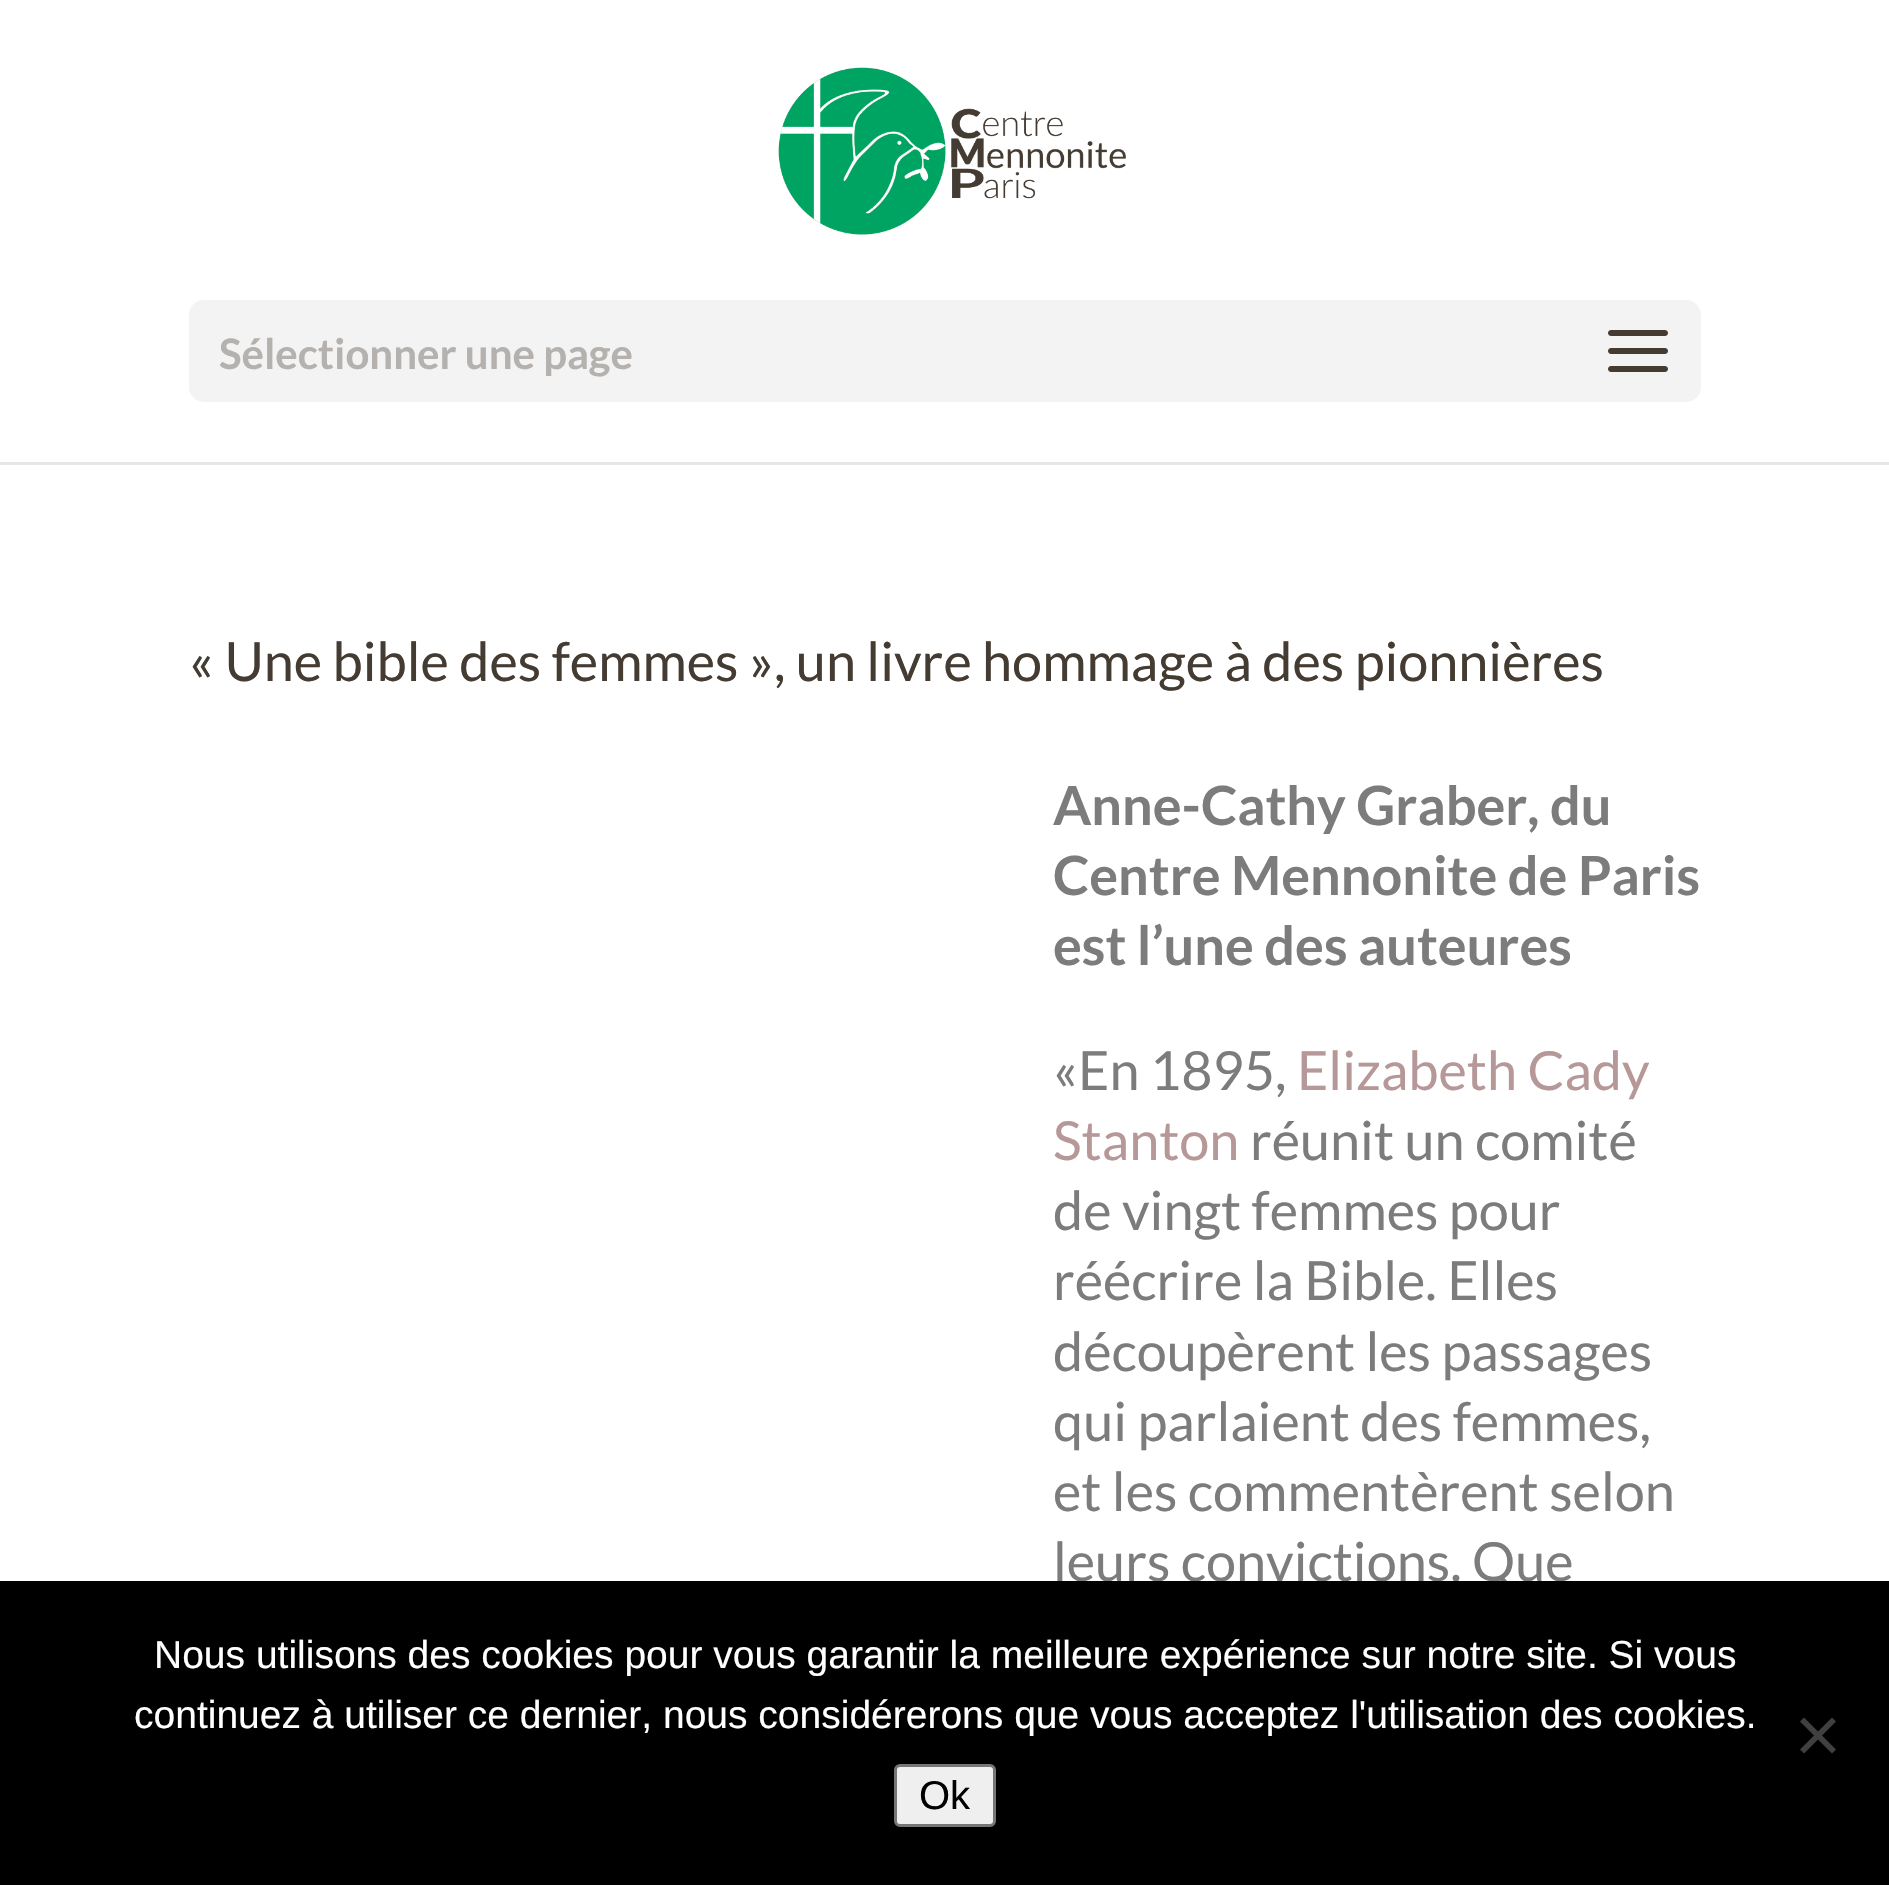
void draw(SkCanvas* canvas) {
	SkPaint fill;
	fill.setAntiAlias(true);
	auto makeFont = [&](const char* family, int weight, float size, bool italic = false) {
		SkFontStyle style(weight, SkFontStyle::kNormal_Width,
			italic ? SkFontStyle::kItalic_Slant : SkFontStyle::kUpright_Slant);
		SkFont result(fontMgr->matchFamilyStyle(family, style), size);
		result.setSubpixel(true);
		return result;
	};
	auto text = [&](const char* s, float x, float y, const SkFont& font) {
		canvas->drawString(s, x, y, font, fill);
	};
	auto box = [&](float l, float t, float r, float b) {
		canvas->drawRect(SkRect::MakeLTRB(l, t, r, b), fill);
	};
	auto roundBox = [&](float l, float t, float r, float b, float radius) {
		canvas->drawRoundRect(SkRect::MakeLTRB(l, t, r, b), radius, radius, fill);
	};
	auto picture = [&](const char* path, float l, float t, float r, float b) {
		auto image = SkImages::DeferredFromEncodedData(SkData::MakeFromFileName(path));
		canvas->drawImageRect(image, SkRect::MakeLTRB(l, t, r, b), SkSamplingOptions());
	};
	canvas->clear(0xFFFFFFFF);
	fill.setColor(0xFFE6E6E6);
	box(0, 462, 1889, 465);
	picture("image0.png", 778, 67, 1126, 235);
	fill.setColor(0xFFF3F3F3);
	roundBox(189, 300, 1701, 402, 15);
	picture("image1.png", 1608, 330, 1668, 372);
	auto font1 = makeFont("Lato", 700, 42);
	fill.setColor(0xFFB4B1AE);
	text("Sélectionner une page", 219, 369, font1);
	auto font2 = makeFont("Lato", 400, 54);
	fill.setColor(0xFF443B32);
	text("« Une bible des femmes », un livre hommage à des pionnières", 189, 681, font2);
	auto font3 = makeFont("Lato", 700, 54);
	fill.setColor(0xFF7C7C7C);
	text("Anne-Cathy Graber, du", 1053, 825, font3);
	text("Centre Mennonite de Paris", 1053, 895, font3);
	text("est l’une des auteures", 1053, 965, font3);
	text("«En 1895,", 1053, 1090, font2);
	fill.setColor(0xFFB79898);
	text("Elizabeth Cady", 1297, 1090, font2);
	text("Stanton", 1053, 1160, font2);
	fill.setColor(0xFF7C7C7C);
	text("réunit un comité", 1250, 1160, font2);
	text("de vingt femmes pour", 1053, 1230, font2);
	text("réécrire la Bible. Elles", 1053, 1300, font2);
	text("découpèrent les passages", 1053, 1371, font2);
	text("qui parlaient des femmes,", 1053, 1441, font2);
	text("et les commentèrent selon", 1053, 1511, font2);
	text("leurs convictions. Que", 1053, 1581, font2);
	fill.setColor(0xFF000000);
	box(0, 1581, 1889, 1885);
	auto font4 = makeFont("Liberation Sans", 400, 39);
	fill.setColor(0xFFFFFFFF);
	text("Nous utilisons des cookies pour vous garantir la meilleure expérience sur notre site. Si vous", 154, 1668, font4);
	text("continuez à utiliser ce dernier, nous considérerons que vous acceptez l'utilisation des cookies.", 134, 1728, font4);
	fill.setColor(0xFF404040);
	canvas->drawPath(SkPathBuilder().moveTo(1832, 1717.5f).lineTo(1836, 1721.5f).lineTo(1804, 1753.5f).lineTo(1800, 1749.5f).close().detach(), fill);
	canvas->drawPath(SkPathBuilder().moveTo(1800, 1721.5f).lineTo(1804, 1717.5f).lineTo(1836, 1749.5f).lineTo(1832, 1753.5f).close().detach(), fill);
	fill.setColor(0xFFEFEFEF);
	canvas->drawRoundRect(SkRect::MakeLTRB(895.5f, 1765.5f, 994.5f, 1825.5f), 4.5f, 4.5f, fill);
	fill.setStyle(SkPaint::kStroke_Style);
	fill.setStrokeWidth(3);
	fill.setColor(0xFF767676);
	canvas->drawRoundRect(SkRect::MakeLTRB(895.5f, 1765.5f, 994.5f, 1825.5f), 4.5f, 4.5f, fill);
	auto font5 = makeFont("Liberation Sans", 400, 40);
	fill.setStyle(SkPaint::kFill_Style);
	fill.setColor(0xFF000000);
	text("Ok", 919, 1809, font5);
}
